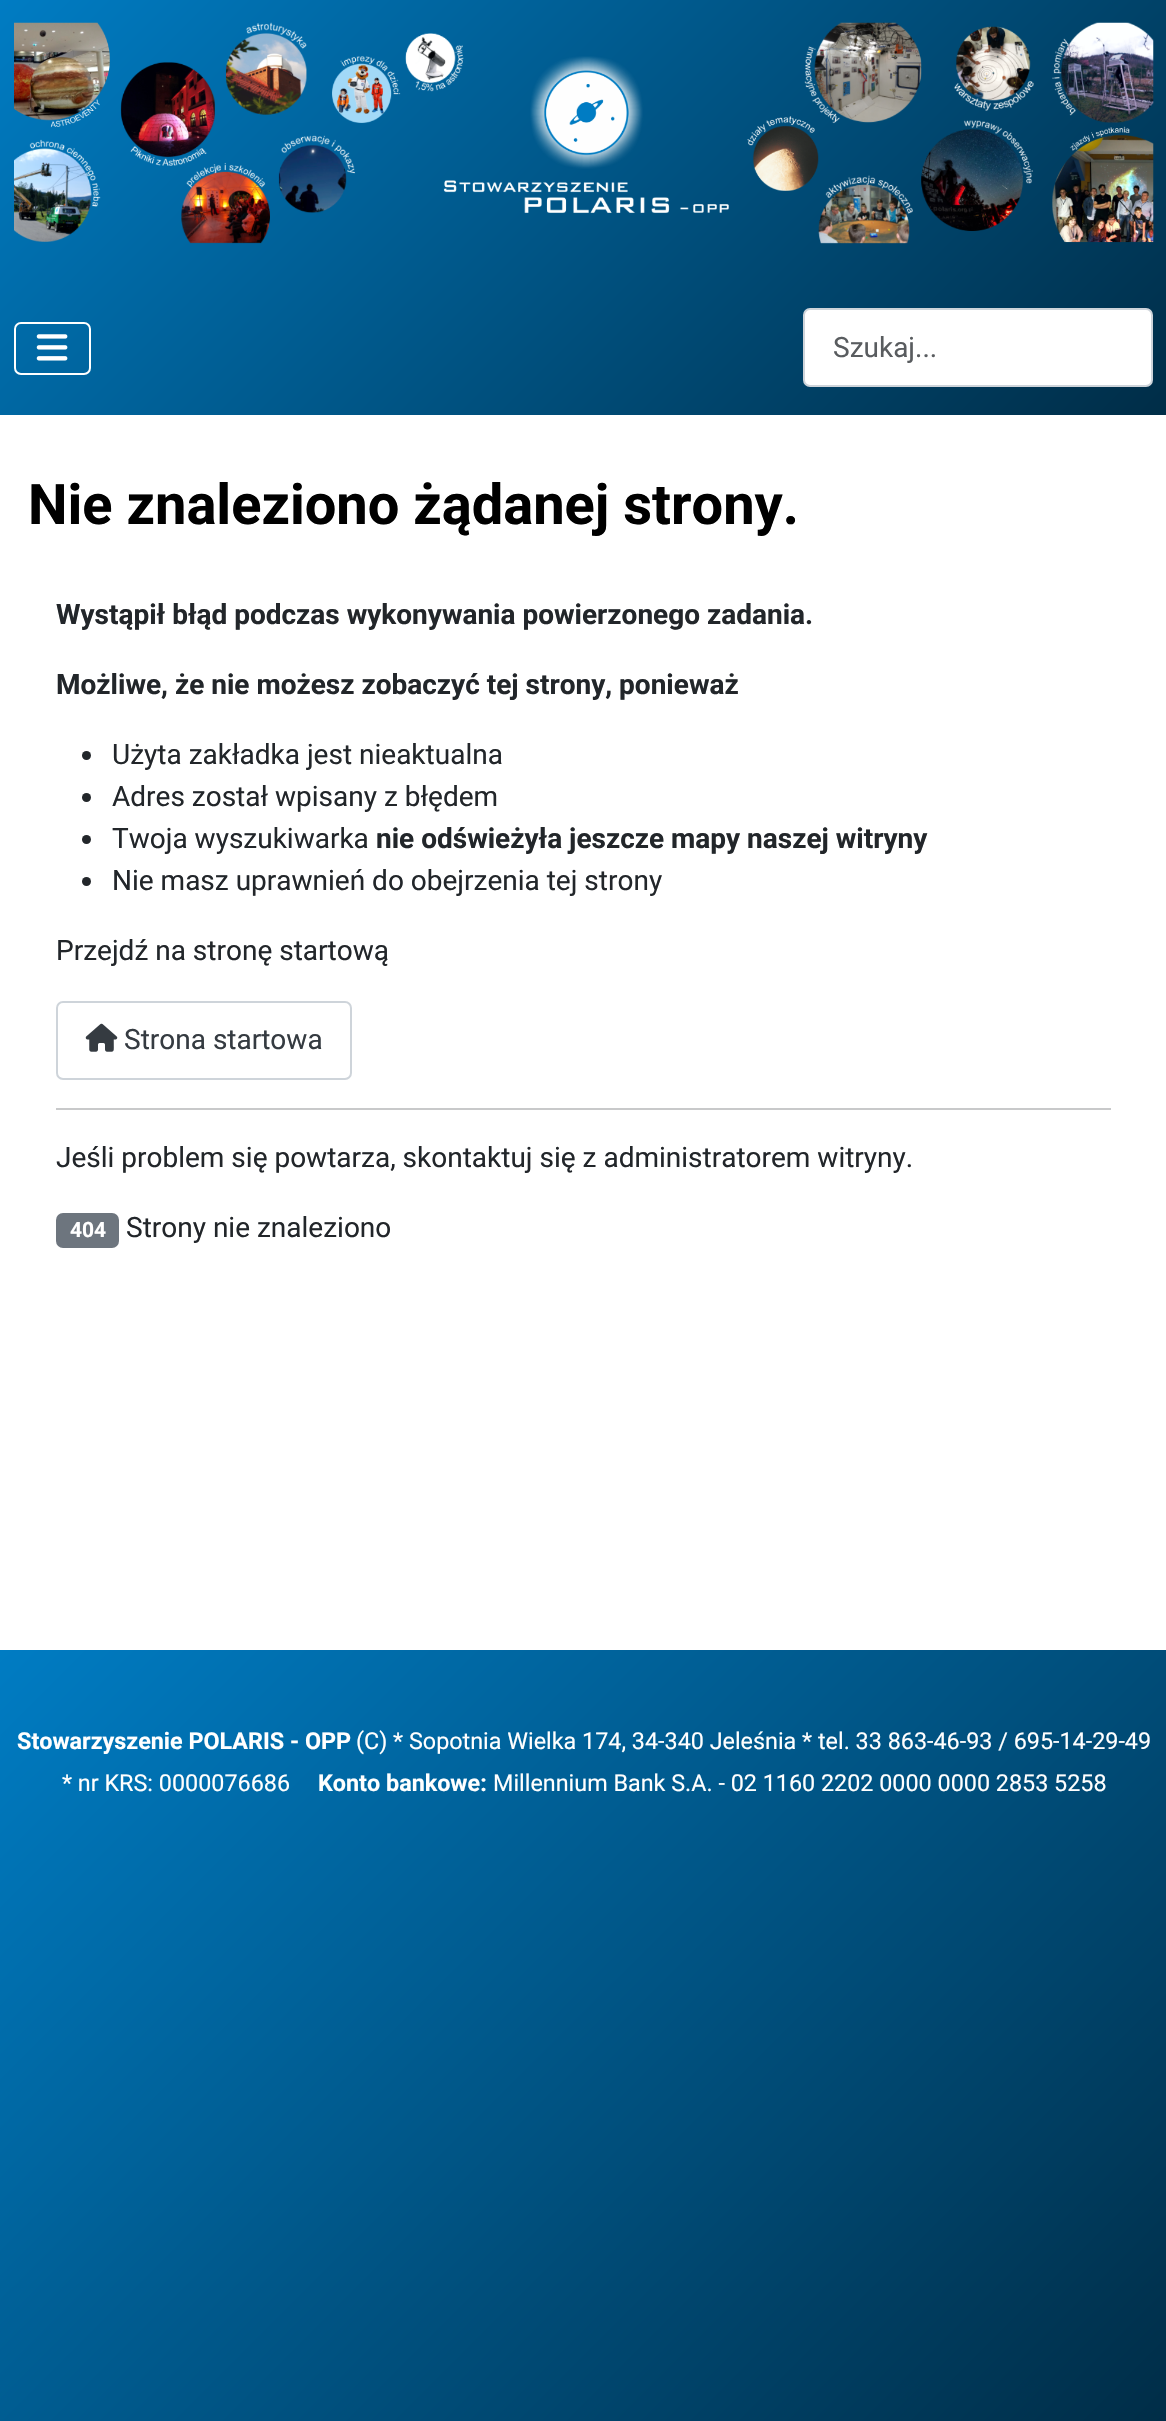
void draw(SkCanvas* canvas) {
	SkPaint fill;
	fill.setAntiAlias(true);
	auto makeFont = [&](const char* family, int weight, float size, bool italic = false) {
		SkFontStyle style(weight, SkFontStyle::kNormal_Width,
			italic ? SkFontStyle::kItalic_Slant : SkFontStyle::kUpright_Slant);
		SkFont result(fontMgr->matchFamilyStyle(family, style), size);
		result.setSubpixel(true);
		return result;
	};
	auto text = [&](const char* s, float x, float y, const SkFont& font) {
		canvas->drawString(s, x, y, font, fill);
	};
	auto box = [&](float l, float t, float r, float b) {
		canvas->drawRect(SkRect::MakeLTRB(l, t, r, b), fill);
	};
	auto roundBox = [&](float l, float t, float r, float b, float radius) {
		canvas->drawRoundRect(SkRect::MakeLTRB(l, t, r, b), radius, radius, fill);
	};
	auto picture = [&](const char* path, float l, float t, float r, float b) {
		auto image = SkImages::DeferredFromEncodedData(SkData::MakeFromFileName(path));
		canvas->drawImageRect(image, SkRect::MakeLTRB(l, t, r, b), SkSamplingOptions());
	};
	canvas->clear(0xFFFFFFFF);
	{
		const SkColor colors[] = {0xFF007CC3, 0xFF002D47};
		const float stops[] = {0, 1};
		const SkPoint ends[] = {{188, -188}, {979, 603}};
		fill.setShader(SkGradientShader::MakeLinear(ends, colors, stops, 2, SkTileMode::kClamp));
		fill.setAlpha(255);
	}
	box(0, 0, 1166, 415);
	picture("image0.png", 14, 22, 1154, 244);
	fill.setStyle(SkPaint::kStroke_Style);
	fill.setStrokeWidth(2);
	fill.setShader(nullptr);
	fill.setColor(0xFFFFFFFF);
	canvas->drawRoundRect(SkRect::MakeLTRB(15, 323, 90, 374), 6, 6, fill);
	picture("image1.png", 36, 334, 68, 361);
	fill.setStyle(SkPaint::kFill_Style);
	canvas->drawRoundRect(SkRect::MakeLTRB(804, 309, 1152, 386), 6, 6, fill);
	fill.setStyle(SkPaint::kStroke_Style);
	fill.setColor(0xFFCED4DA);
	canvas->drawRoundRect(SkRect::MakeLTRB(804, 309, 1152, 386), 6, 6, fill);
	fill.setStyle(SkPaint::kFill_Style);
	fill.setColor(0xFF22262A);
	canvas->drawCircle(86.5f, 755.5f, 4.5f, fill);
	canvas->drawCircle(86.5f, 797.5f, 4.5f, fill);
	canvas->drawCircle(86.5f, 839.5f, 4.5f, fill);
	canvas->drawCircle(86.5f, 881.5f, 4.5f, fill);
	fill.setStyle(SkPaint::kStroke_Style);
	fill.setColor(0xFFCED4DA);
	canvas->drawRoundRect(SkRect::MakeLTRB(57, 1002, 351, 1079), 6, 6, fill);
	picture("image2.png", 85, 1023, 118, 1052);
	fill.setStyle(SkPaint::kFill_Style);
	fill.setColor(0xFFC8C9CA);
	box(56, 1108, 1111, 1110);
	fill.setColor(0xFF6D757E);
	roundBox(56, 1213, 119, 1248, 7);
	{
		const SkColor colors[] = {0xFF007CC3, 0xFF002D47};
		const float stops[] = {0, 1};
		const SkPoint ends[] = {{99, 1551}, {1068, 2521}};
		fill.setShader(SkGradientShader::MakeLinear(ends, colors, stops, 2, SkTileMode::kClamp));
		fill.setAlpha(255);
	}
	box(0, 1650, 1166, 2421);
	auto font1 = makeFont("Roboto", 400, 28);
	fill.setShader(nullptr);
	fill.setColor(0xFF595C5F);
	text("Szukaj...", 833, 357, font1);
	auto font2 = makeFont("Roboto", 700, 56);
	fill.setColor(0xFF000000);
	text("Nie znaleziono żądanej strony.", 28, 524, font2);
	auto font3 = makeFont("Roboto", 700, 28);
	fill.setColor(0xFF22262A);
	text("Wystąpił błąd podczas wykonywania powierzonego zadania.", 56, 624, font3);
	text("Możliwe, że nie możesz zobaczyć tej strony, ponieważ", 56, 694, font3);
	text("Użyta zakładka jest nieaktualna", 112, 764, font1);
	text("Adres został wpisany z błędem", 112, 806, font1);
	text("Twoja wyszukiwarka", 112, 848, font1);
	text("nie odświeżyła jeszcze mapy naszej witryny", 376, 848, font3);
	text("Nie masz uprawnień do obejrzenia tej strony", 112, 890, font1);
	text("Przejdź na stronę startową", 56, 960, font1);
	fill.setColor(0xFF353B41);
	text("Strona startowa", 124, 1049, font1);
	fill.setColor(0xFF22262A);
	text("Jeśli problem się powtarza, skontaktuj się z administratorem witryny.", 56, 1167, font1);
	auto font4 = makeFont("Roboto", 700, 21);
	fill.setColor(0xFFFFFFFF);
	text("404", 70, 1237, font4);
	fill.setColor(0xFF22262A);
	text("Strony nie znaleziono", 126, 1237, font1);
	auto font5 = makeFont("Roboto", 700, 23.35f);
	fill.setColor(0xFFFFFFFF);
	text("Stowarzyszenie POLARIS - OPP", 17, 1749, font5);
	auto font6 = makeFont("Roboto", 400, 23.35f);
	text("(C) * Sopotnia Wielka 174, 34-340 Jeleśnia * tel. 33 863-46-93 / 695-14-29-49", 356, 1749, font6);
	text("* nr KRS: 0000076686", 62, 1791, font6);
	text("Konto bankowe:", 318, 1791, font5);
	text("Millennium Bank S.A. - 02 1160 2202 0000 0000 2853 5258", 493, 1791, font6);
}
